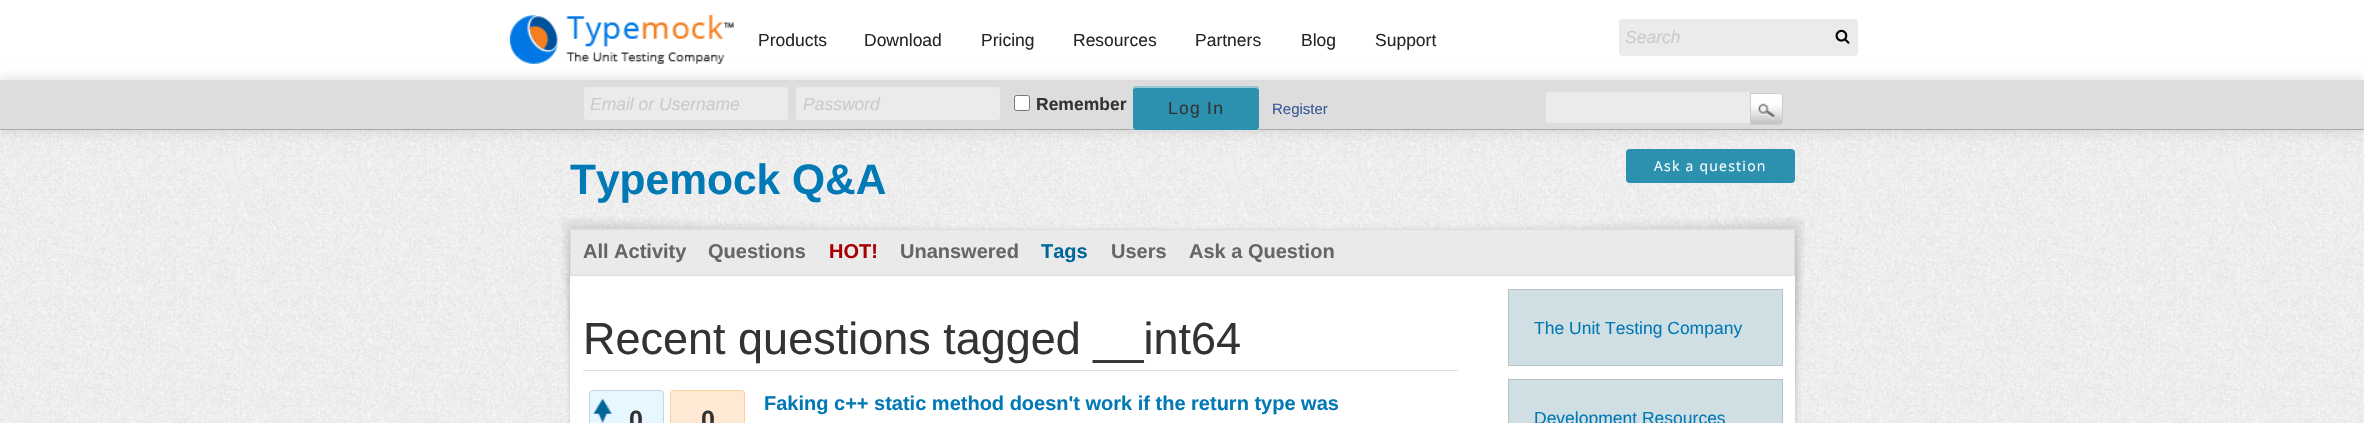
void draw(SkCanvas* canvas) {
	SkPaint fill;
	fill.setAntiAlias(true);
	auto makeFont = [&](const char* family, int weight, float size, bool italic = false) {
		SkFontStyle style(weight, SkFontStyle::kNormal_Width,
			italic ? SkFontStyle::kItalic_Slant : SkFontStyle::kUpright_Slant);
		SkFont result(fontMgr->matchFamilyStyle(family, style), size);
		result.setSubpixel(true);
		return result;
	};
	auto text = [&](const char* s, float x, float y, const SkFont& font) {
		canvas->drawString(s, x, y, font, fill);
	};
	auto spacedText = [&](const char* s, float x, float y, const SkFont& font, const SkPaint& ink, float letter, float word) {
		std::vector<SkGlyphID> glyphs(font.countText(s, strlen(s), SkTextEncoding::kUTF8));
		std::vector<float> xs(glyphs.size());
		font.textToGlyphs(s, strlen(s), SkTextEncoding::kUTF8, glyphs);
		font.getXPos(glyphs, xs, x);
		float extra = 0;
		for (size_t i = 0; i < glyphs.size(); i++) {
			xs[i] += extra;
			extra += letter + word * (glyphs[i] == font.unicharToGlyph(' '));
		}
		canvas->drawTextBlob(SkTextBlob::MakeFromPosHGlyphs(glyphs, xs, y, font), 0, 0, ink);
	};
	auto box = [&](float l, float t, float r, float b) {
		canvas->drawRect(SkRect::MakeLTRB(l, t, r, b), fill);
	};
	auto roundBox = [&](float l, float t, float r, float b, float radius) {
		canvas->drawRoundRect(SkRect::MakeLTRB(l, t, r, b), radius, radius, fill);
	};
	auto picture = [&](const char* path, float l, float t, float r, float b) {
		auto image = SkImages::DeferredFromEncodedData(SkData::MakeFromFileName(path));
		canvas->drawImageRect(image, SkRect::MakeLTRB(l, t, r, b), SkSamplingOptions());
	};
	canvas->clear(0xFFFFFFFF);
	picture("image0.png", 0, 130, 2364, 423);
	fill.setColor(0x26000000);
	fill.setMaskFilter(SkMaskFilter::MakeBlur(kNormal_SkBlurStyle, 6));
	canvas->drawRect(SkRect::MakeLTRB(0, 80, 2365, 130), fill);
	fill.setMaskFilter(nullptr);
	picture("image1.png", 509, 14, 734, 64);
	fill.setColor(0xFFEBEBEB);
	roundBox(1619, 19, 1858, 56, 4);
	picture("image2.png", 1835, 29, 1850, 44);
	fill.setColor(0xFFDDDDDD);
	box(0, 80, 2364, 129);
	fill.setColor(0xFFAAAAAA);
	box(0, 129, 2364, 130);
	fill.setColor(0xFFEBEBEB);
	canvas->drawRoundRect(SkRect::MakeLTRB(583.5f, 86.5f, 788.5f, 120.5f), 3.5f, 3.5f, fill);
	fill.setStyle(SkPaint::kStroke_Style);
	fill.setStrokeWidth(1);
	fill.setColor(0xFFDDDDDD);
	canvas->drawRoundRect(SkRect::MakeLTRB(583.5f, 86.5f, 788.5f, 120.5f), 3.5f, 3.5f, fill);
	fill.setStyle(SkPaint::kFill_Style);
	fill.setColor(0xFFEBEBEB);
	canvas->drawRoundRect(SkRect::MakeLTRB(795.5f, 86.5f, 1000.5f, 120.5f), 3.5f, 3.5f, fill);
	fill.setStyle(SkPaint::kStroke_Style);
	fill.setColor(0xFFDDDDDD);
	canvas->drawRoundRect(SkRect::MakeLTRB(795.5f, 86.5f, 1000.5f, 120.5f), 3.5f, 3.5f, fill);
	fill.setStyle(SkPaint::kFill_Style);
	fill.setColor(0xFFFFFFFF);
	canvas->drawRoundRect(SkRect::MakeLTRB(1014.5f, 95.5f, 1029.5f, 110.5f), 2, 2, fill);
	fill.setStyle(SkPaint::kStroke_Style);
	fill.setColor(0xFF767676);
	canvas->drawRoundRect(SkRect::MakeLTRB(1014.5f, 95.5f, 1029.5f, 110.5f), 2, 2, fill);
	fill.setStyle(SkPaint::kFill_Style);
	fill.setColor(0xFF2B91AF);
	roundBox(1133, 86, 1259, 130, 4);
	fill.setColor(0x80FFFFFF);
	canvas->drawPath(SkPathBuilder().moveTo(1136, 88).lineTo(1255, 88).cubicTo(1257, 88, 1259, 89, 1259, 91).lineTo(1259, 90).cubicTo(1259, 88, 1257, 86, 1255, 86).lineTo(1137, 86).cubicTo(1135, 86, 1134, 87, 1133, 89).close().detach(), fill);
	fill.setColor(0xFFEBEBEB);
	canvas->drawPath(SkPathBuilder().moveTo(1549, 91.5f).lineTo(1750.5f, 91.5f).lineTo(1750.5f, 123.5f).lineTo(1549, 123.5f).cubicTo(1547, 123.5f, 1545.5f, 122, 1545.5f, 120).lineTo(1545.5f, 95).cubicTo(1545.5f, 93, 1547, 91.5f, 1549, 91.5f).close().detach(), fill);
	fill.setStyle(SkPaint::kStroke_Style);
	fill.setColor(0xFFDDDDDD);
	canvas->drawPath(SkPathBuilder().moveTo(1549, 91.5f).lineTo(1750.5f, 91.5f).lineTo(1750.5f, 123.5f).lineTo(1549, 123.5f).cubicTo(1547, 123.5f, 1545.5f, 122, 1545.5f, 120).lineTo(1545.5f, 95).cubicTo(1545.5f, 93, 1547, 91.5f, 1549, 91.5f).close().detach(), fill);
	picture("image3.png", 1751, 93, 1783, 125);
	fill.setColor(0xFFCCCCCC);
	canvas->drawPath(SkPathBuilder().moveTo(1750.5f, 93.5f).lineTo(1779, 93.5f).cubicTo(1781, 93.5f, 1782.5f, 95, 1782.5f, 97).lineTo(1782.5f, 121).cubicTo(1782.5f, 123, 1781, 124.5f, 1779, 124.5f).lineTo(1750.5f, 124.5f).close().detach(), fill);
	fill.setStyle(SkPaint::kFill_Style);
	fill.setColor(0xFF2B91AF);
	roundBox(1626, 149, 1795, 183, 4);
	picture("image4.png", 561, 217, 1805, 423);
	fill.setColor(0x1A000000);
	fill.setMaskFilter(SkMaskFilter::MakeBlur(kNormal_SkBlurStyle, 1));
	canvas->drawRect(SkRect::MakeLTRB(570, 229, 1795, 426), fill);
	fill.setMaskFilter(nullptr);
	fill.setColor(0xFFFFFFFF);
	box(570, 276, 1795, 423);
	fill.setColor(0xFFEAEAEA);
	canvas->drawRect(SkRect::MakeLTRB(570.5f, 229.5f, 1794.5f, 275.5f), fill);
	fill.setStyle(SkPaint::kStroke_Style);
	fill.setColor(0xFFDDDDDD);
	canvas->drawRect(SkRect::MakeLTRB(570.5f, 229.5f, 1794.5f, 275.5f), fill);
	fill.setStyle(SkPaint::kFill_Style);
	box(583, 370, 1458, 371);
	fill.setColor(0xFFE7F7FF);
	canvas->drawRoundRect(SkRect::MakeLTRB(589.5f, 390.5f, 663.5f, 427.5f), 3.5f, 3.5f, fill);
	fill.setStyle(SkPaint::kStroke_Style);
	fill.setColor(0xFFC5D6DF);
	canvas->drawRoundRect(SkRect::MakeLTRB(589.5f, 390.5f, 663.5f, 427.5f), 3.5f, 3.5f, fill);
	picture("image5.png", 593, 398, 612, 423);
	fill.setStyle(SkPaint::kFill_Style);
	fill.setColor(0xFFFFE9D5);
	canvas->drawRoundRect(SkRect::MakeLTRB(670.5f, 390.5f, 744.5f, 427.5f), 3.5f, 3.5f, fill);
	fill.setStyle(SkPaint::kStroke_Style);
	fill.setColor(0xFFFFD196);
	canvas->drawRoundRect(SkRect::MakeLTRB(670.5f, 390.5f, 744.5f, 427.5f), 3.5f, 3.5f, fill);
	fill.setStyle(SkPaint::kFill_Style);
	fill.setColor(0xFFD0DFE4);
	canvas->drawRect(SkRect::MakeLTRB(1508.5f, 289.5f, 1782.5f, 365.5f), fill);
	fill.setStyle(SkPaint::kStroke_Style);
	fill.setColor(0xFFB6C4C8);
	canvas->drawRect(SkRect::MakeLTRB(1508.5f, 289.5f, 1782.5f, 365.5f), fill);
	fill.setStyle(SkPaint::kFill_Style);
	fill.setColor(0xFFD0DFE4);
	canvas->drawRect(SkRect::MakeLTRB(1508.5f, 379.5f, 1782.5f, 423.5f), fill);
	fill.setStyle(SkPaint::kStroke_Style);
	fill.setColor(0xFFB6C4C8);
	canvas->drawRect(SkRect::MakeLTRB(1508.5f, 379.5f, 1782.5f, 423.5f), fill);
	auto font1 = makeFont("Liberation Sans", 400, 17.5f);
	fill.setStyle(SkPaint::kFill_Style);
	fill.setColor(0xFF262626);
	text("Products", 758, 46, font1);
	text("Download", 864, 46, font1);
	text("Pricing", 981, 46, font1);
	text("Resources", 1073, 46, font1);
	text("Partners", 1195, 46, font1);
	text("Blog", 1301, 46, font1);
	text("Support", 1375, 46, font1);
	auto font2 = makeFont("Liberation Sans", 400, 17.5f, true);
	fill.setColor(0xFFCBCBCB);
	text("Search", 1625, 43, font2);
	text("Email or Username", 590, 110, font2);
	text("Password", 803, 110, font2);
	auto font3 = makeFont("Liberation Sans", 700, 17.5f);
	fill.setColor(0xFF333333);
	text("Remember", 1036, 110, font3);
	spacedText("Log In", 1168, 114, font1, fill, 1.25f, 0);
	auto font4 = makeFont("Liberation Sans", 400, 15);
	fill.setColor(0xFF3B5998);
	text("Register", 1272, 114, font4);
	auto font5 = makeFont("Liberation Sans", 700, 42.5f);
	fill.setColor(0xFF0179B5);
	text("Typemock Q&A", 570, 194, font5);
	auto font6 = makeFont("Open Sans", 400, 14);
	fill.setColor(0xFFFFFFFF);
	spacedText("Ask a question", 1654, 171, font6, fill, 1.25f, 0);
	auto font7 = makeFont("Liberation Sans", 700, 20);
	fill.setColor(0xFF666666);
	text("All Activity", 583, 258, font7);
	text("Questions", 708, 258, font7);
	fill.setColor(0xFFA80000);
	text("HOT!", 829, 258, font7);
	fill.setColor(0xFF666666);
	text("Unanswered", 900, 258, font7);
	fill.setColor(0xFF006699);
	text("Tags", 1041, 258, font7);
	fill.setColor(0xFF666666);
	text("Users", 1111, 258, font7);
	text("Ask a Question", 1189, 258, font7);
	auto font8 = makeFont("Liberation Sans", 400, 45);
	fill.setColor(0xFF333333);
	text("Recent questions tagged __int64", 583, 354, font8);
	fill.setColor(0xFF0179B5);
	text("Faking c++ static method doesn't work if the return type was", 764, 410, font7);
	auto font9 = makeFont("Liberation Sans", 700, 25);
	fill.setColor(0xFF333333);
	text("0", 629, 428, font9);
	text("0", 701, 428, font9);
	fill.setColor(0xFF0179B5);
	text("The Unit Testing Company", 1534, 334, font1);
	text("Development Resources", 1534, 424, font1);
}
